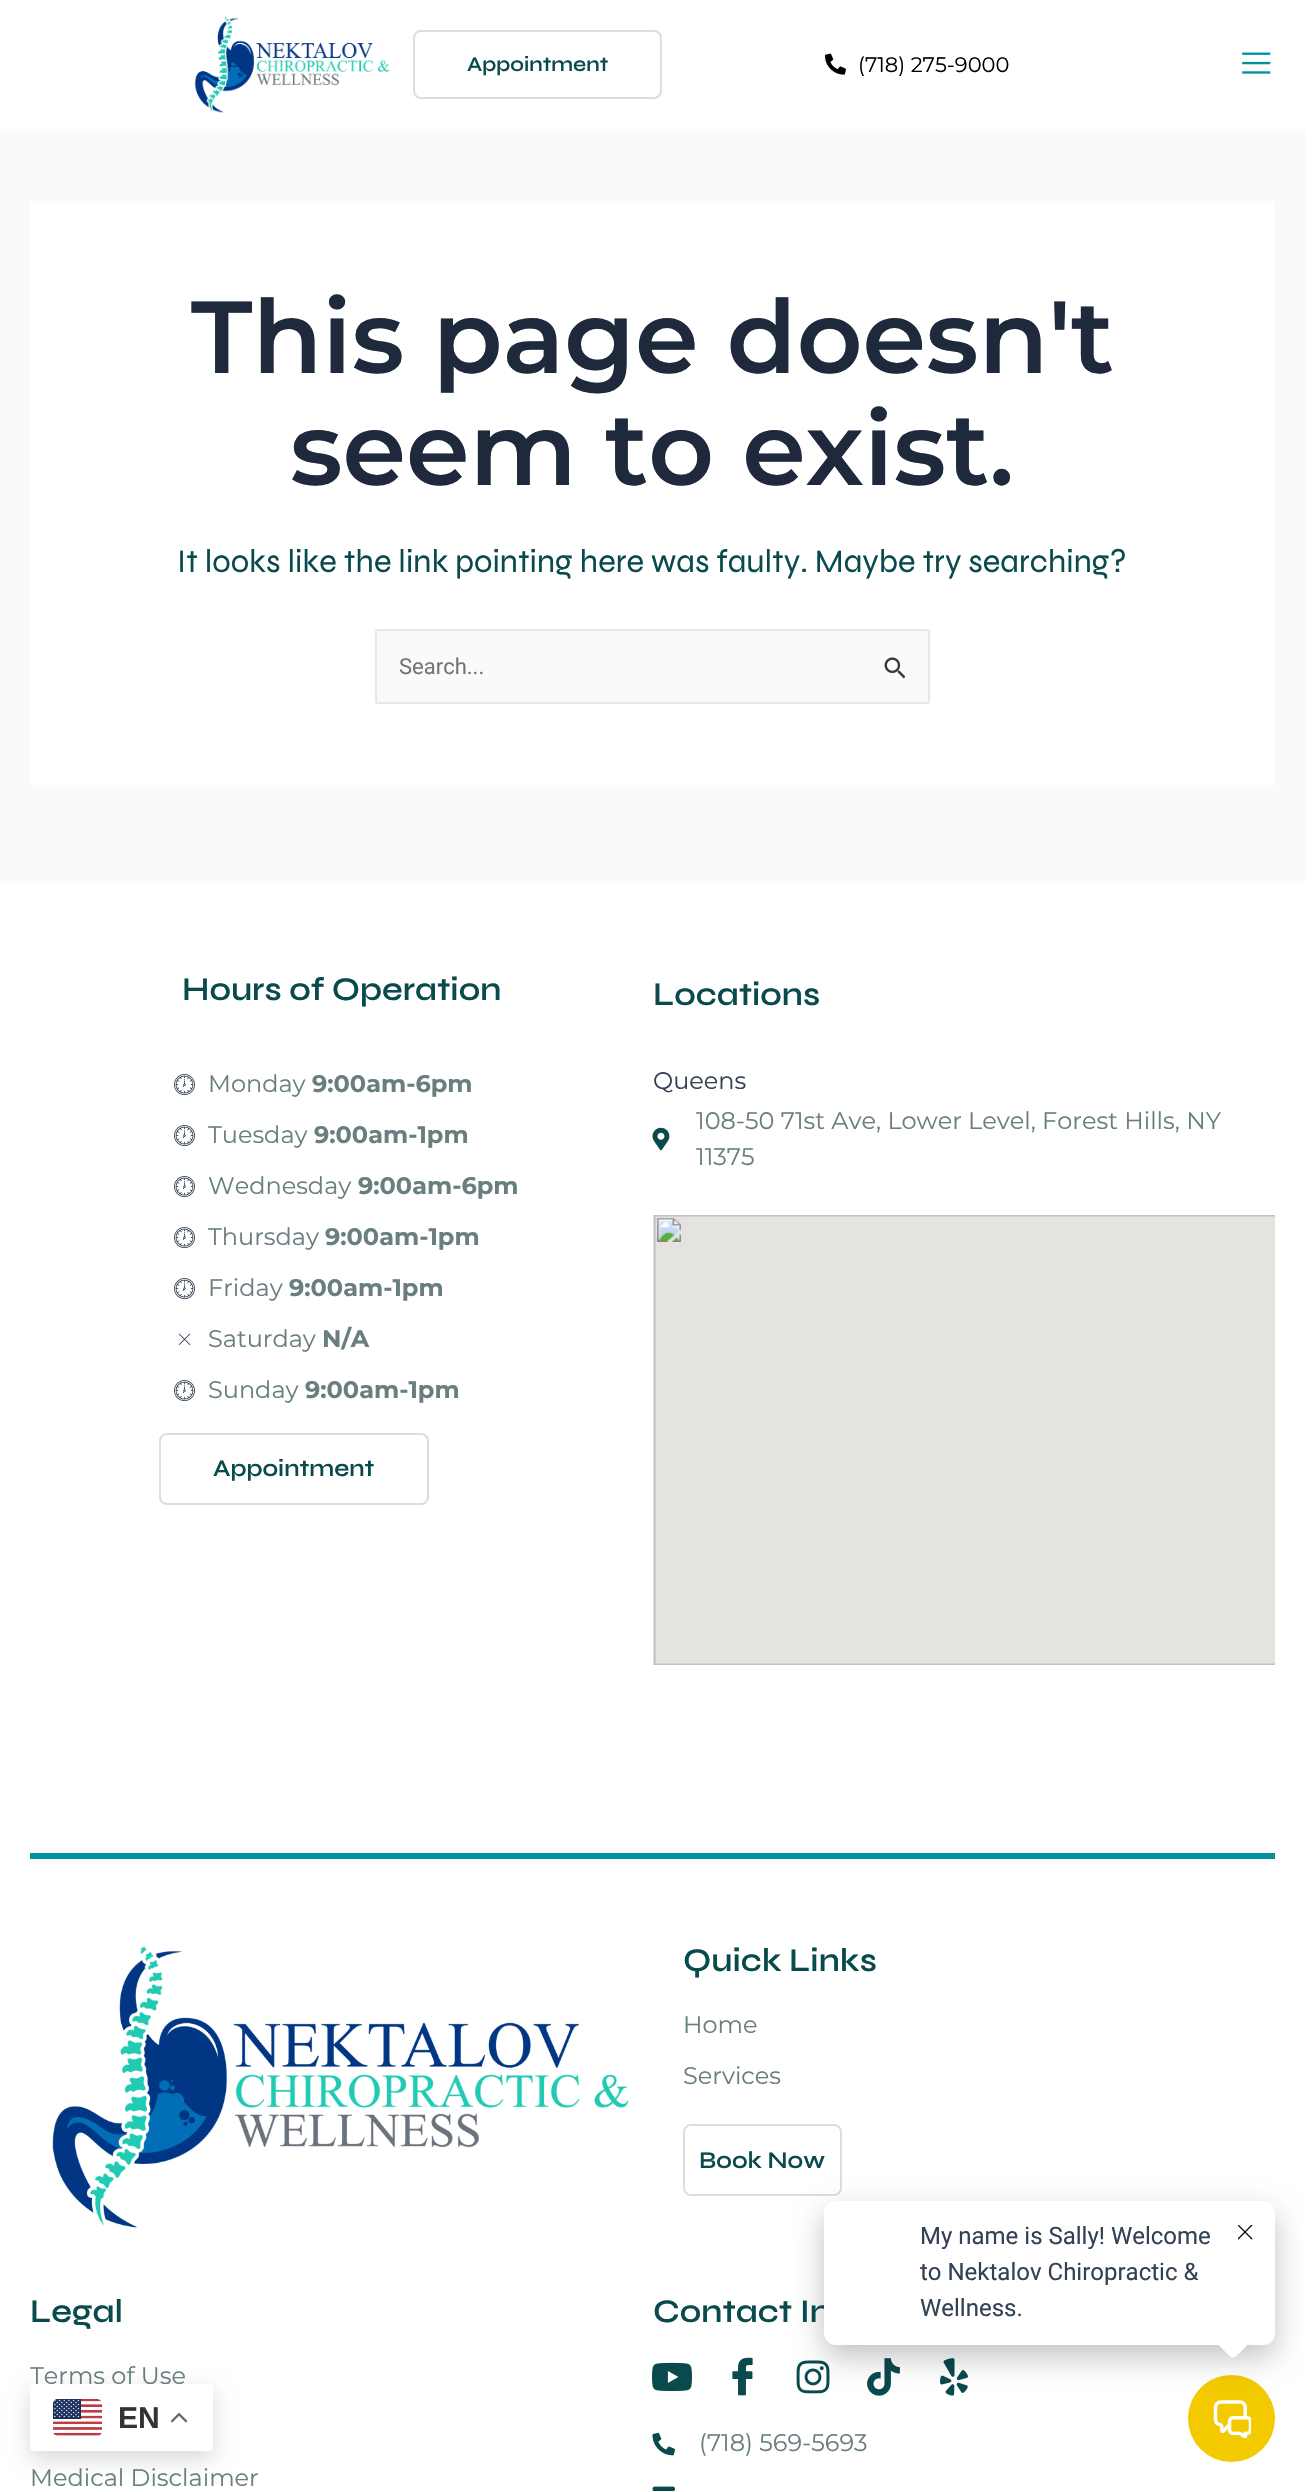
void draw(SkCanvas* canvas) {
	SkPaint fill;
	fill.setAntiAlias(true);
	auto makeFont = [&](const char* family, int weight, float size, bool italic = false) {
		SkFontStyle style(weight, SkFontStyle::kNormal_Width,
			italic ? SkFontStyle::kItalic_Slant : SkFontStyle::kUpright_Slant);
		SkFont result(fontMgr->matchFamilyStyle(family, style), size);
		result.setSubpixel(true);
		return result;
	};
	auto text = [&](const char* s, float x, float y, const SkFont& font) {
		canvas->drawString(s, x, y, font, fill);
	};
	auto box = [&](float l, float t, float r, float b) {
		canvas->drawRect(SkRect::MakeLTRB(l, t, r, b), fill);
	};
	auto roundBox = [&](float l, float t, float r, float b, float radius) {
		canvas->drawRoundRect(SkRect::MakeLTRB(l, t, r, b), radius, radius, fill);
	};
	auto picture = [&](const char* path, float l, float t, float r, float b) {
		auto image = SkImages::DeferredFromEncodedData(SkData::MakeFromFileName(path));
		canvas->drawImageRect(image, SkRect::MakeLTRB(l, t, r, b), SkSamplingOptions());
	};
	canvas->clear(0xFFF9FAFB);
	fill.setColor(0xFFFFFFFF);
	box(0, 0, 1305, 129);
	picture("image0.png", 194, 16, 390, 113);
	fill.setStyle(SkPaint::kStroke_Style);
	fill.setStrokeWidth(2);
	fill.setColor(0xFFD5E0E1);
	canvas->drawRoundRect(SkRect::MakeLTRB(414, 31, 661, 98), 7, 7, fill);
	picture("image1.png", 825, 53, 846, 75);
	picture("image2.png", 1242, 52, 1271, 74);
	fill.setStyle(SkPaint::kFill_Style);
	fill.setColor(0xFFFFFFFF);
	box(30, 201, 1275, 785);
	fill.setColor(0xFFFAFAFA);
	canvas->drawRoundRect(SkRect::MakeLTRB(376, 630, 929, 703), 2, 2, fill);
	fill.setStyle(SkPaint::kStroke_Style);
	fill.setColor(0xFFE2E8F0);
	canvas->drawRoundRect(SkRect::MakeLTRB(376, 630, 929, 703), 2, 2, fill);
	picture("image3.png", 884, 657, 905, 679);
	fill.setStyle(SkPaint::kFill_Style);
	fill.setColor(0xFFFFFFFF);
	box(0, 881, 1305, 2491);
	picture("image4.png", 174, 1074, 195, 1096);
	picture("image4.png", 174, 1125, 195, 1147);
	picture("image4.png", 174, 1176, 195, 1198);
	picture("image4.png", 174, 1227, 195, 1249);
	picture("image4.png", 174, 1278, 195, 1300);
	picture("image5.png", 178, 1333, 191, 1345);
	picture("image4.png", 174, 1380, 195, 1402);
	fill.setStyle(SkPaint::kStroke_Style);
	fill.setColor(0xFFD5E0E1);
	canvas->drawRoundRect(SkRect::MakeLTRB(160, 1434, 428, 1504), 7, 7, fill);
	picture("image6.png", 652, 1127, 670, 1151);
	picture("image7.png", 652, 1215, 1275, 1665);
	fill.setStyle(SkPaint::kFill_Style);
	fill.setColor(0xFF00939F);
	box(30, 1853, 1275, 1859);
	picture("image8.png", 52, 1946, 629, 2228);
	fill.setStyle(SkPaint::kStroke_Style);
	fill.setColor(0xFFD5E0E1);
	canvas->drawRoundRect(SkRect::MakeLTRB(684, 2125, 841, 2195), 7, 7, fill);
	picture("image9.png", 652, 2362, 692, 2391);
	picture("image10.png", 732, 2357, 753, 2396);
	picture("image11.png", 796, 2360, 830, 2394);
	picture("image12.png", 867, 2358, 900, 2396);
	picture("image13.png", 940, 2358, 968, 2396);
	picture("image14.png", 652, 2432, 675, 2456);
	picture("image15.png", 652, 2486, 675, 2491);
	fill.setStyle(SkPaint::kFill_Style);
	fill.setColor(0x26000000);
	fill.setMaskFilter(SkMaskFilter::MakeBlur(kNormal_SkBlurStyle, 11));
	canvas->drawRoundRect(SkRect::MakeLTRB(30, 2391, 213, 2459), 3, 3, fill);
	fill.setMaskFilter(nullptr);
	fill.setColor(0xFFF3C900);
	canvas->drawCircle(1231.5f, 2418.5f, 43.5f, fill);
	picture("image19.png", 1213, 2400, 1251, 2438);
	fill.setColor(0x3D000000);
	fill.setMaskFilter(SkMaskFilter::MakeBlur(kNormal_SkBlurStyle, 15));
	canvas->drawRoundRect(SkRect::MakeLTRB(824, 2213, 1275, 2357), 12, 12, fill);
	fill.setMaskFilter(nullptr);
	auto font1 = makeFont("Syne", 600, 21);
	fill.setColor(0xFF094A4D);
	text("Appointment", 467, 71, font1);
	auto font2 = makeFont("Montserrat", 400, 21);
	fill.setColor(0xFF000000);
	text("(718) 275-9000", 858, 72, font2);
	auto font3 = makeFont("Montserrat", 600, 102);
	fill.setColor(0xFF1E293B);
	text("This page doesn't", 191, 373, font3);
	text("seem to exist.", 290, 485, font3);
	auto font4 = makeFont("Syne", 400, 32.8f);
	fill.setColor(0xFF094A4D);
	text("It looks like the link pointing here was faulty. Maybe try searching?", 177, 572, font4);
	auto font5 = makeFont("Roboto", 400, 22);
	fill.setColor(0xFF757575);
	text("Search...", 399, 674, font5);
	auto font6 = makeFont("Syne", 600, 33);
	fill.setColor(0xFF094A4D);
	text("Hours of Operation", 182, 1000, font6);
	auto font7 = makeFont("Montserrat", 400, 24);
	fill.setColor(0xFF697E7F);
	text("Monday", 208, 1092, font7);
	auto font8 = makeFont("Montserrat", 700, 24);
	text("9:00am-6pm", 312, 1092, font8);
	text("Tuesday", 208, 1143, font7);
	text("9:00am-1pm", 314, 1143, font8);
	text("Wednesday", 208, 1194, font7);
	text("9:00am-6pm", 358, 1194, font8);
	text("Thursday", 208, 1245, font7);
	text("9:00am-1pm", 325, 1245, font8);
	text("Friday", 208, 1296, font7);
	text("9:00am-1pm", 289, 1296, font8);
	text("Saturday", 208, 1347, font7);
	text("N/A", 322, 1347, font8);
	text("Sunday", 208, 1398, font7);
	text("9:00am-1pm", 305, 1398, font8);
	auto font9 = makeFont("Syne", 600, 24);
	fill.setColor(0xFF094A4D);
	text("Appointment", 213, 1476, font9);
	text("Locations", 653, 1005, font6);
	fill.setColor(0xFF334155);
	text("Queens", 653, 1089, font7);
	fill.setColor(0xFF697E7F);
	text("108-50 71st Ave, Lower Level, Forest Hills, NY", 696, 1129, font7);
	text("11375", 696, 1165, font7);
	fill.setColor(0xFF094A4D);
	text("Quick Links", 683, 1971, font6);
	fill.setColor(0xFF697E7F);
	text("Home", 683, 2033, font7);
	text("Services", 683, 2084, font7);
	fill.setColor(0xFF094A4D);
	text("Book Now", 699, 2168, font9);
	text("Legal", 30, 2322, font6);
	fill.setColor(0xFF697E7F);
	text("Terms of Use", 30, 2384, font7);
	text("Medical Disclaimer", 30, 2486, font7);
	fill.setColor(0xFF094A4D);
	text("Contact In", 653, 2322, font6);
	fill.setColor(0xFF697E7F);
	text("(718) 569-5693", 699, 2451, font7);
	fill.setColor(0xFFFFFFFF);
	roundBox(30, 2384, 213, 2451, 3);
	picture("image16.png", 53, 2399, 102, 2436);
	auto font10 = makeFont("Liberation Sans", 700, 30);
	fill.setColor(0xFF333333);
	text("EN", 118, 2428, font10);
	picture("image17.png", 171, 2412, 188, 2423);
	fill.setColor(0xFFFFFFFF);
	roundBox(824, 2201, 1275, 2345, 12);
	auto font11 = makeFont("Roboto", 400, 24);
	fill.setColor(0xFF334155);
	text("My name is Sally! Welcome", 920, 2244, font11);
	text("to Nektalov Chiropractic &", 920, 2280, font11);
	text("Wellness.", 920, 2316, font11);
	fill.setColor(0xFFFFFFFF);
	canvas->drawPath(SkPathBuilder().moveTo(1237, 2321.5f).lineTo(1250, 2334.5f).cubicTo(1252.5f, 2336.5f, 1252.5f, 2340.5f, 1250, 2342.5f).lineTo(1237, 2355.5f).cubicTo(1235, 2358, 1231, 2358, 1229, 2355.5f).lineTo(1216, 2342.5f).cubicTo(1213.5f, 2340.5f, 1213.5f, 2336.5f, 1216, 2334.5f).lineTo(1229, 2321.5f).cubicTo(1231, 2319, 1235, 2319, 1237, 2321.5f).close().detach(), fill);
	picture("image18.png", 1238, 2225, 1253, 2240);
}
